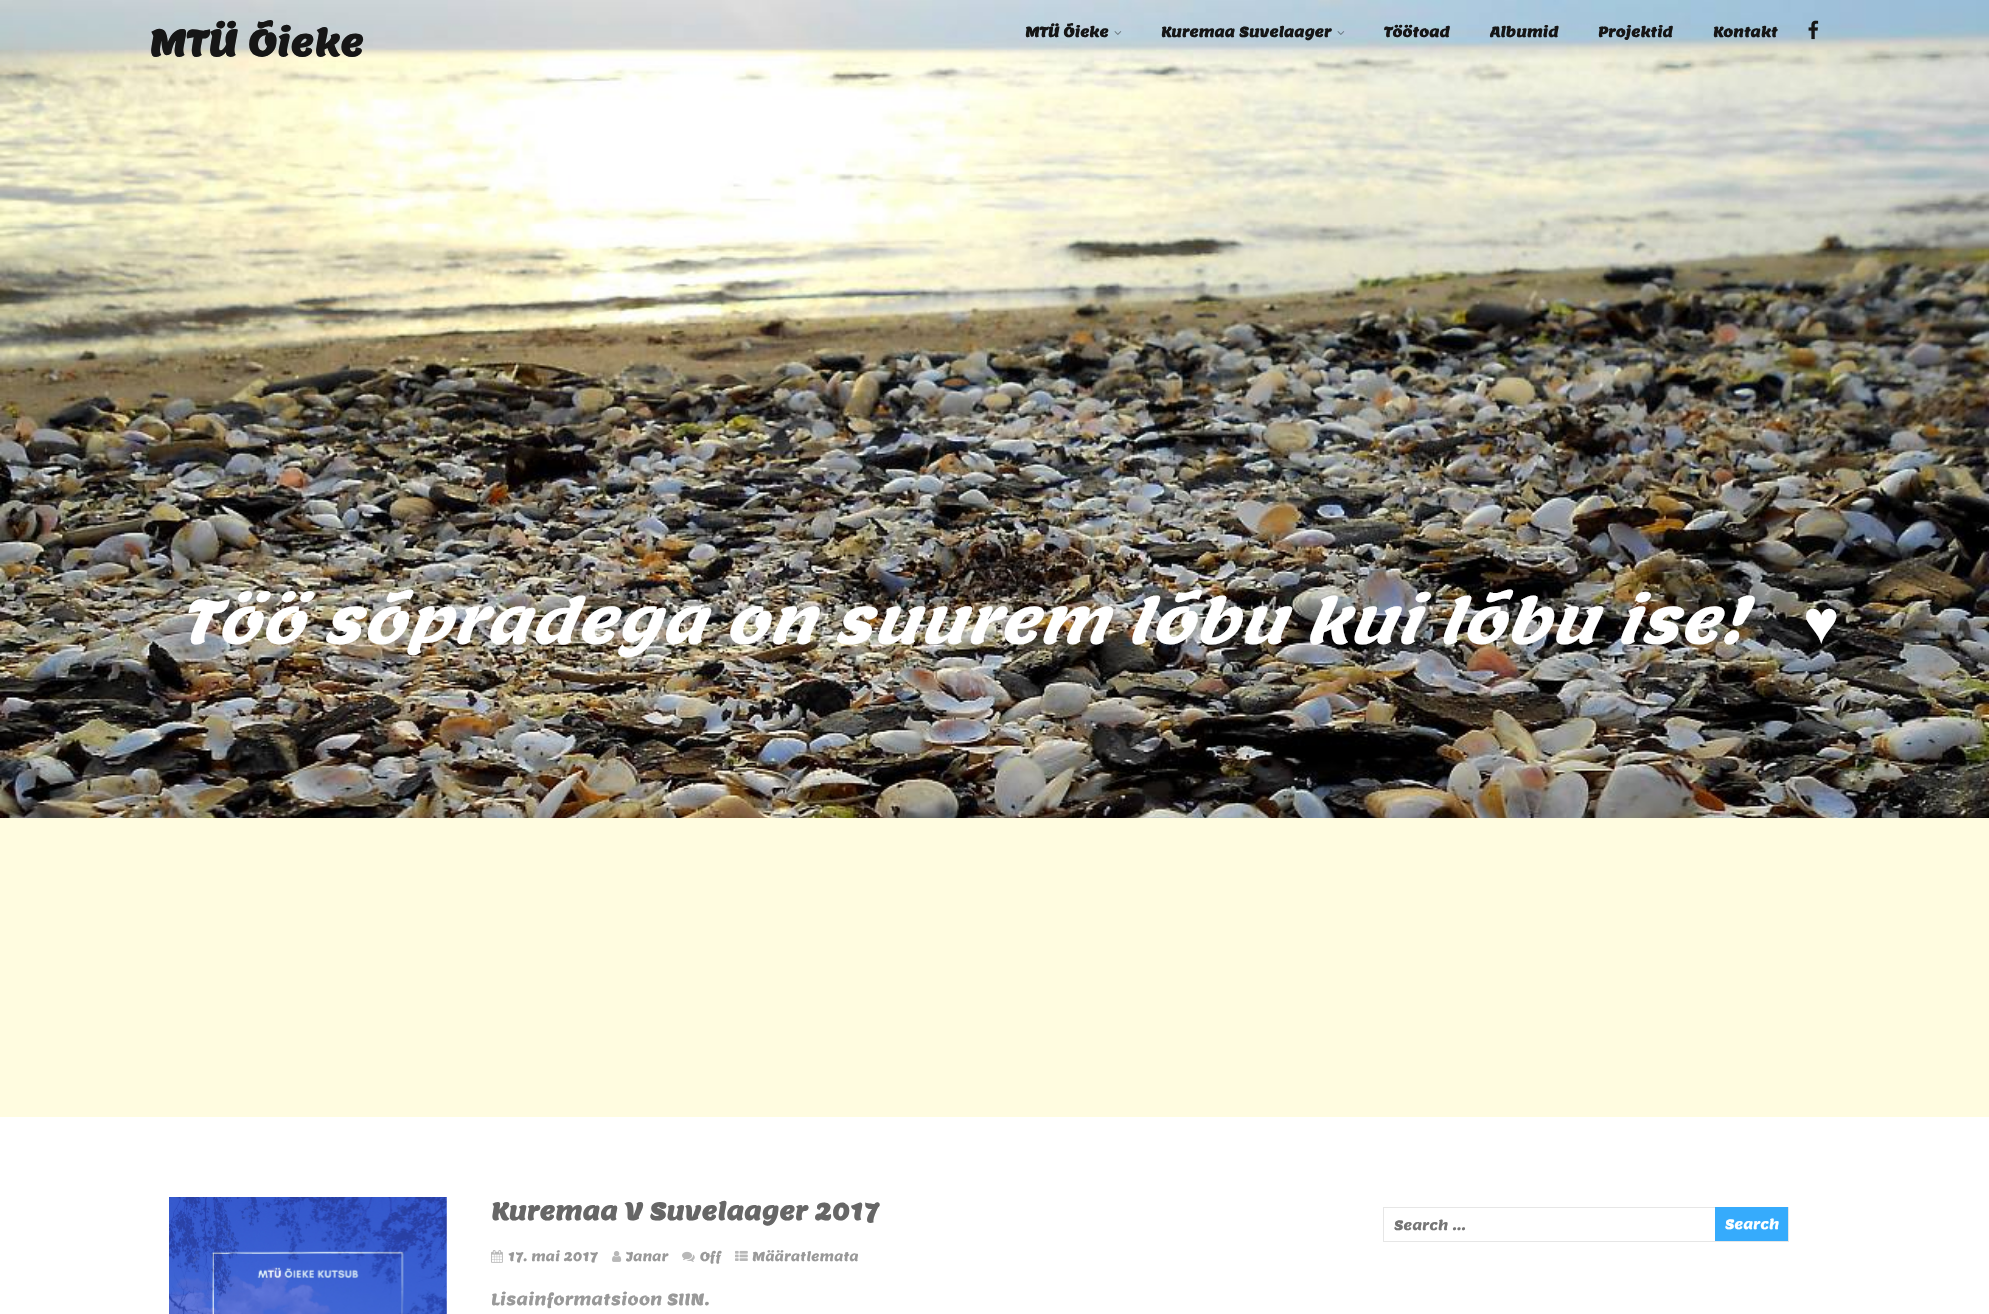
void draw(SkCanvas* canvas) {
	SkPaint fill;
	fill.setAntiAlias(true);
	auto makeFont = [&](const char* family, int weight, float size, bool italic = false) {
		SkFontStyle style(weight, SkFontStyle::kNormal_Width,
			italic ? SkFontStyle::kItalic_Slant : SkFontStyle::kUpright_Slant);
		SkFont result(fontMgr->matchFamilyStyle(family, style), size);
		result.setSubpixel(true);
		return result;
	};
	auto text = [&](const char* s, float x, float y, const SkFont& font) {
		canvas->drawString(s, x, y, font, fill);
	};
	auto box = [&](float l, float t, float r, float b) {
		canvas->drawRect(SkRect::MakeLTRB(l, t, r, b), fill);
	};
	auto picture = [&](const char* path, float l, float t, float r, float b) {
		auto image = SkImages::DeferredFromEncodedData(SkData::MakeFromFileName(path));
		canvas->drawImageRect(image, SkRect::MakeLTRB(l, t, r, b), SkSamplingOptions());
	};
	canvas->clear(0xFFFFFCE0);
	picture("image0.png", 0, 0, 1989, 818);
	picture("image1.png", 1114, 31, 1122, 35);
	picture("image2.png", 1337, 31, 1345, 35);
	picture("image3.png", 1808, 20, 1819, 40);
	fill.setColor(0xFFFFFFFF);
	box(0, 1117, 1989, 1314);
	picture("image4.png", 169, 1197, 447, 1314);
	picture("image5.png", 491, 1250, 503, 1263);
	picture("image6.png", 612, 1251, 622, 1262);
	picture("image7.png", 682, 1251, 695, 1262);
	picture("image8.png", 735, 1250, 748, 1261);
	fill.setStyle(SkPaint::kStroke_Style);
	fill.setStrokeWidth(1);
	fill.setColor(0xFFE6E6E6);
	canvas->drawRect(SkRect::MakeLTRB(1383.5f, 1207.5f, 1788.5f, 1241.5f), fill);
	fill.setStyle(SkPaint::kFill_Style);
	fill.setColor(0xFF36ABFC);
	box(1715, 1207, 1788, 1241);
	auto font1 = makeFont("Lemon", 700, 36);
	fill.setColor(0xFF161616);
	text("MTÜ Õieke", 149, 56, font1);
	auto font2 = makeFont("Lemon", 700, 14);
	text("MTÜ Õieke", 1025, 37, font2);
	text("Kuremaa Suvelaager", 1161, 37, font2);
	text("Töötoad", 1384, 37, font2);
	text("Albumid", 1490, 37, font2);
	text("Projektid", 1598, 37, font2);
	text("Kontakt", 1713, 37, font2);
	auto font3 = makeFont("Lemon", 400, 61.3f, true);
	fill.setColor(0xFFFFFFFF);
	text("Töö sõpradega on suurem lõbu kui lõbu ise!", 180, 643, font3);
	auto font4 = makeFont("Liberation Serif", 400, 61.3f, true);
	text("♥", 1803, 643, font4);
	auto font5 = makeFont("Lemon", 700, 24);
	fill.setColor(0xFF666666);
	text("Kuremaa V Suvelaager 2017", 491, 1220, font5);
	auto font6 = makeFont("Lemon", 400, 12.75f);
	fill.setColor(0xFF999999);
	text("17. mai 2017", 508, 1261, font6);
	text("Janar", 626, 1261, font6);
	text("Off", 700, 1261, font6);
	text("Määratlemata", 752, 1261, font6);
	auto font7 = makeFont("Lemon", 400, 16);
	text("Lisainformatsioon SIIN.", 491, 1305, font7);
	auto font8 = makeFont("Lemon", 400, 13.5f);
	fill.setColor(0xFF757575);
	text("Search …", 1394, 1230, font8);
	fill.setColor(0xFFFFFFFF);
	text("Search", 1725, 1229, font8);
}
